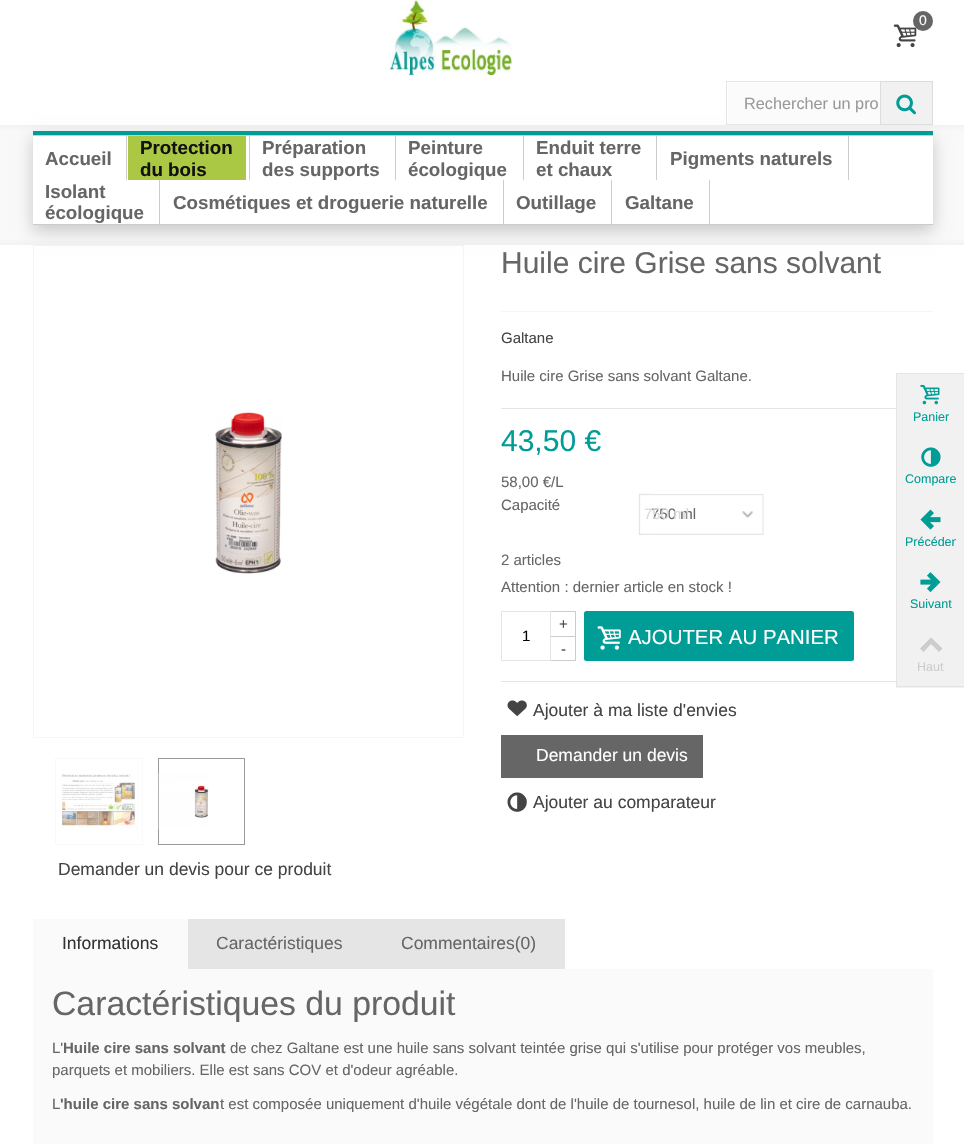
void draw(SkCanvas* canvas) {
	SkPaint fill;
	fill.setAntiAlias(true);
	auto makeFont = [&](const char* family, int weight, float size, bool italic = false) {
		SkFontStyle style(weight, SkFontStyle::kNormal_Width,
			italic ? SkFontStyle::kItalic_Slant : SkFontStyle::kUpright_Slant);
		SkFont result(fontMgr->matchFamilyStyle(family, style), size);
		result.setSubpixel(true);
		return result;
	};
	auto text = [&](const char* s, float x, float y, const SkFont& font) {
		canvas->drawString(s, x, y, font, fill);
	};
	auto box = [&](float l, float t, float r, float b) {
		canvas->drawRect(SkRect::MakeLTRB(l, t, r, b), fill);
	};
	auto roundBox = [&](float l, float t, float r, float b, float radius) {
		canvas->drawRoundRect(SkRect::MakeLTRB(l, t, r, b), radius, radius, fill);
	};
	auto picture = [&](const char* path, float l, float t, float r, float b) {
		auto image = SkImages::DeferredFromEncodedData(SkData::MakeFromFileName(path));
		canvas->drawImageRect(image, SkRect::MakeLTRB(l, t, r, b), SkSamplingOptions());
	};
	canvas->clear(0xFFFFFFFF);
	picture("image0.png", 390, 0, 513, 75);
	picture("image1.png", 893, 24, 917, 48);
	fill.setColor(0xFF666666);
	canvas->drawCircle(923, 21, 10, fill);
	{
		const SkColor colors[] = {0xFFF2F2F2, 0xFFF9F9F9, 0xFFF9F9F9, 0xFFF2F2F2};
		const float stops[] = {0, 0.05f, 0.95f, 1};
		const SkPoint ends[] = {{483, 125}, {483, 245}};
		fill.setShader(SkGradientShader::MakeLinear(ends, colors, stops, 4, SkTileMode::kClamp));
		fill.setAlpha(255);
	}
	box(0, 125, 964, 245);
	fill.setStyle(SkPaint::kStroke_Style);
	fill.setStrokeWidth(1);
	fill.setShader(nullptr);
	fill.setColor(0xFFF5F5F5);
	canvas->drawRect(SkRect::MakeLTRB(33.5f, 245.5f, 463.5f, 737.5f), fill);
	fill.setStyle(SkPaint::kFill_Style);
	fill.setColor(0x33000000);
	fill.setMaskFilter(SkMaskFilter::MakeBlur(kNormal_SkBlurStyle, 8));
	canvas->drawRect(SkRect::MakeLTRB(33, 138, 933, 231), fill);
	fill.setMaskFilter(nullptr);
	fill.setColor(0xFFFBFBFB);
	box(728, 83, 880, 123);
	fill.setColor(0xFFE5E5E5);
	box(726, 81, 880, 82);
	box(726, 124, 880, 125);
	box(726, 81, 727, 125);
	fill.setColor(0xFFF1F1F1);
	canvas->drawRect(SkRect::MakeLTRB(880.5f, 81.5f, 932.5f, 124.5f), fill);
	fill.setStyle(SkPaint::kStroke_Style);
	fill.setColor(0xFFDDDDDD);
	canvas->drawRect(SkRect::MakeLTRB(880.5f, 81.5f, 932.5f, 124.5f), fill);
	picture("image2.png", 896, 94, 916, 115);
	fill.setStyle(SkPaint::kFill_Style);
	fill.setColor(0xFF009C96);
	box(33, 131, 933, 135);
	fill.setColor(0xFFFFFFFF);
	box(33, 136, 933, 224);
	fill.setColor(0xFFCCCCCC);
	box(33, 135, 933, 136);
	box(33, 224, 933, 225);
	box(126, 136, 127, 180);
	box(249, 136, 250, 180);
	fill.setColor(0xFFAAC844);
	box(128, 136, 246, 180);
	fill.setColor(0xFFCCCCCC);
	box(395, 136, 396, 180);
	box(523, 136, 524, 180);
	box(656, 136, 657, 180);
	box(848, 136, 849, 180);
	box(159, 180, 160, 224);
	box(503, 180, 504, 224);
	box(611, 180, 612, 224);
	box(709, 180, 710, 224);
	fill.setColor(0xFFF5F5F5);
	box(501, 311, 933, 312);
	fill.setColor(0xFFE5E5E5);
	box(501, 408, 896, 409);
	picture("image3.png", 638, 493, 652, 535);
	picture("image4.png", 651, 494, 764, 535);
	box(501, 681, 896, 682);
	fill.setColor(0xFFCCCCCC);
	box(551, 611, 576, 612);
	box(575, 611, 576, 636);
	fill.setStyle(SkPaint::kStroke_Style);
	fill.setColor(0xFFE5E5E5);
	canvas->drawRect(SkRect::MakeLTRB(501.5f, 611.5f, 550.5f, 660.5f), fill);
	fill.setStyle(SkPaint::kFill_Style);
	fill.setColor(0xFFCCCCCC);
	box(551, 636, 576, 637);
	box(575, 636, 576, 661);
	box(551, 660, 576, 661);
	fill.setColor(0xFF009C96);
	roundBox(584, 611, 854, 661, 2.5f);
	picture("image5.png", 597, 626, 621, 650);
	picture("image6.png", 507, 700, 527, 717);
	fill.setColor(0xFF666666);
	box(501, 735, 703, 778);
	picture("image7.png", 507, 792, 527, 812);
	picture("image8.png", 215, 412, 282, 574);
	fill.setStyle(SkPaint::kStroke_Style);
	fill.setColor(0xFFF9F9F9);
	canvas->drawRect(SkRect::MakeLTRB(55.5f, 758.5f, 142.5f, 844.5f), fill);
	picture("image9.png", 62, 774, 138, 831);
	fill.setColor(0xFF999999);
	canvas->drawRect(SkRect::MakeLTRB(158.5f, 758.5f, 244.5f, 844.5f), fill);
	picture("image10.png", 158, 773, 209, 830);
	fill.setStyle(SkPaint::kFill_Style);
	fill.setColor(0xFFFAFAFA);
	box(33, 919, 188, 969);
	fill.setColor(0xFFE5E5E5);
	box(188, 919, 565, 969);
	fill.setColor(0xFFFAFAFA);
	box(33, 969, 933, 1144);
	fill.setColor(0xFFF1F1F1);
	box(896, 374, 964, 688);
	fill.setColor(0xFFE5E5E5);
	box(896, 373, 964, 374);
	box(896, 686, 964, 687);
	box(896, 374, 897, 686);
	picture("image11.png", 920, 384, 940, 405);
	picture("image12.png", 921, 447, 941, 467);
	picture("image13.png", 920, 509, 941, 530);
	picture("image14.png", 920, 572, 941, 593);
	fill.setColor(0xFFCCCCCC);
	canvas->drawPath(SkPathBuilder().moveTo(920, 648.5f).lineTo(931, 637.5f).lineTo(942.5f, 648.5f).lineTo(939, 652).lineTo(931, 644).lineTo(923.5f, 652).close().detach(), fill);
	auto font1 = makeFont("Liberation Sans", 400, 14);
	fill.setColor(0xFFFFFFFF);
	text("0", 919, 25, font1);
	auto font2 = makeFont("Liberation Sans", 400, 16.25f);
	fill.setColor(0xFF999999);
	text("Rechercher un pro", 744, 109, font2);
	auto font3 = makeFont("Liberation Sans", 700, 18.75f);
	fill.setColor(0xFF666666);
	text("Accueil", 45, 165, font3);
	fill.setColor(0xFF111111);
	text("Protection", 140, 154, font3);
	text("du bois", 140, 176, font3);
	fill.setColor(0xFF666666);
	text("Préparation", 262, 154, font3);
	text("des supports", 262, 176, font3);
	text("Peinture", 408, 154, font3);
	text("écologique", 408, 176, font3);
	text("Enduit terre", 536, 154, font3);
	text("et chaux", 536, 176, font3);
	text("Pigments naturels", 670, 165, font3);
	text("Isolant", 45, 198, font3);
	text("écologique", 45, 219, font3);
	text("Cosmétiques et droguerie naturelle", 173, 209, font3);
	text("Outillage", 516, 209, font3);
	text("Galtane", 625, 209, font3);
	auto font4 = makeFont("Liberation Sans", 400, 30);
	text("Huile cire Grise sans solvant", 501, 273, font4);
	auto font5 = makeFont("Liberation Sans", 400, 15);
	fill.setColor(0xFF444444);
	text("Galtane", 501, 343, font5);
	fill.setColor(0xFF666666);
	text("Huile cire Grise sans solvant Galtane.", 501, 381, font5);
	fill.setColor(0xFF009C96);
	text("43,50 €", 501, 451, font4);
	fill.setColor(0xFF666666);
	text("58,00 €/L", 501, 487, font5);
	text("Capacité", 501, 510, font5);
	text("750 ml", 651, 519, font5);
	fill.setColor(0xFFD9D9D9);
	text("750 ml", 644, 519, font5);
	fill.setColor(0xFF666666);
	text("2 articles", 501, 565, font5);
	text("Attention : dernier article en stock !", 501, 592, font5);
	fill.setColor(0xFF444444);
	text("+", 559, 629, font5);
	fill.setColor(0xFF000000);
	text("1", 522, 641, font5);
	fill.setColor(0xFF444444);
	text("-", 561, 654, font5);
	auto font6 = makeFont("Liberation Sans", 400, 20.4f);
	fill.setColor(0xFFFFFFFF);
	text("AJOUTER AU PANIER", 628, 644, font6);
	auto font7 = makeFont("Liberation Sans", 400, 17.5f);
	fill.setColor(0xFF444444);
	text("Ajouter à ma liste d'envies", 533, 716, font7);
	fill.setColor(0xFFFFFFFF);
	text("Demander un devis", 536, 761, font7);
	fill.setColor(0xFF444444);
	text("Ajouter au comparateur", 533, 808, font7);
	text("Demander un devis pour ce produit", 58, 875, font7);
	fill.setColor(0xFF333333);
	text("Informations", 62, 949, font7);
	fill.setColor(0xFF666666);
	text("Caractéristiques", 216, 949, font7);
	text("Commentaires(0)", 401, 949, font7);
	auto font8 = makeFont("Liberation Sans", 400, 33.75f);
	text("Caractéristiques du produit", 52, 1015, font8);
	text("L'", 52, 1053, font5);
	auto font9 = makeFont("Liberation Sans", 700, 15);
	text("Huile cire sans solvant", 63, 1053, font9);
	text("de chez Galtane est une huile sans solvant teintée grise qui s'utilise pour protéger vos meubles,", 230, 1053, font5);
	text("parquets et mobiliers. Elle est sans COV et d'odeur agréable.", 52, 1075, font5);
	text("L", 52, 1109, font5);
	text("'huile cire sans solvan", 60, 1109, font9);
	text("t est composée uniquement d'huile végétale dont de l'huile de tournesol, huile de lin et cire de carnauba.", 220, 1109, font5);
	auto font10 = makeFont("Liberation Sans", 400, 12.5f);
	fill.setColor(0xFF009C96);
	text("Panier", 913, 421, font10);
	text("Compare", 905, 483, font10);
	canvas->save();
	canvas->clipRect(SkRect::MakeLTRB(905, 534, 956, 551));
	text("Précéden", 905, 546, font10);
	canvas->restore();
	text("Suivant", 910, 608, font10);
	fill.setColor(0xFFCCCCCC);
	text("Haut", 917, 671, font10);
}
